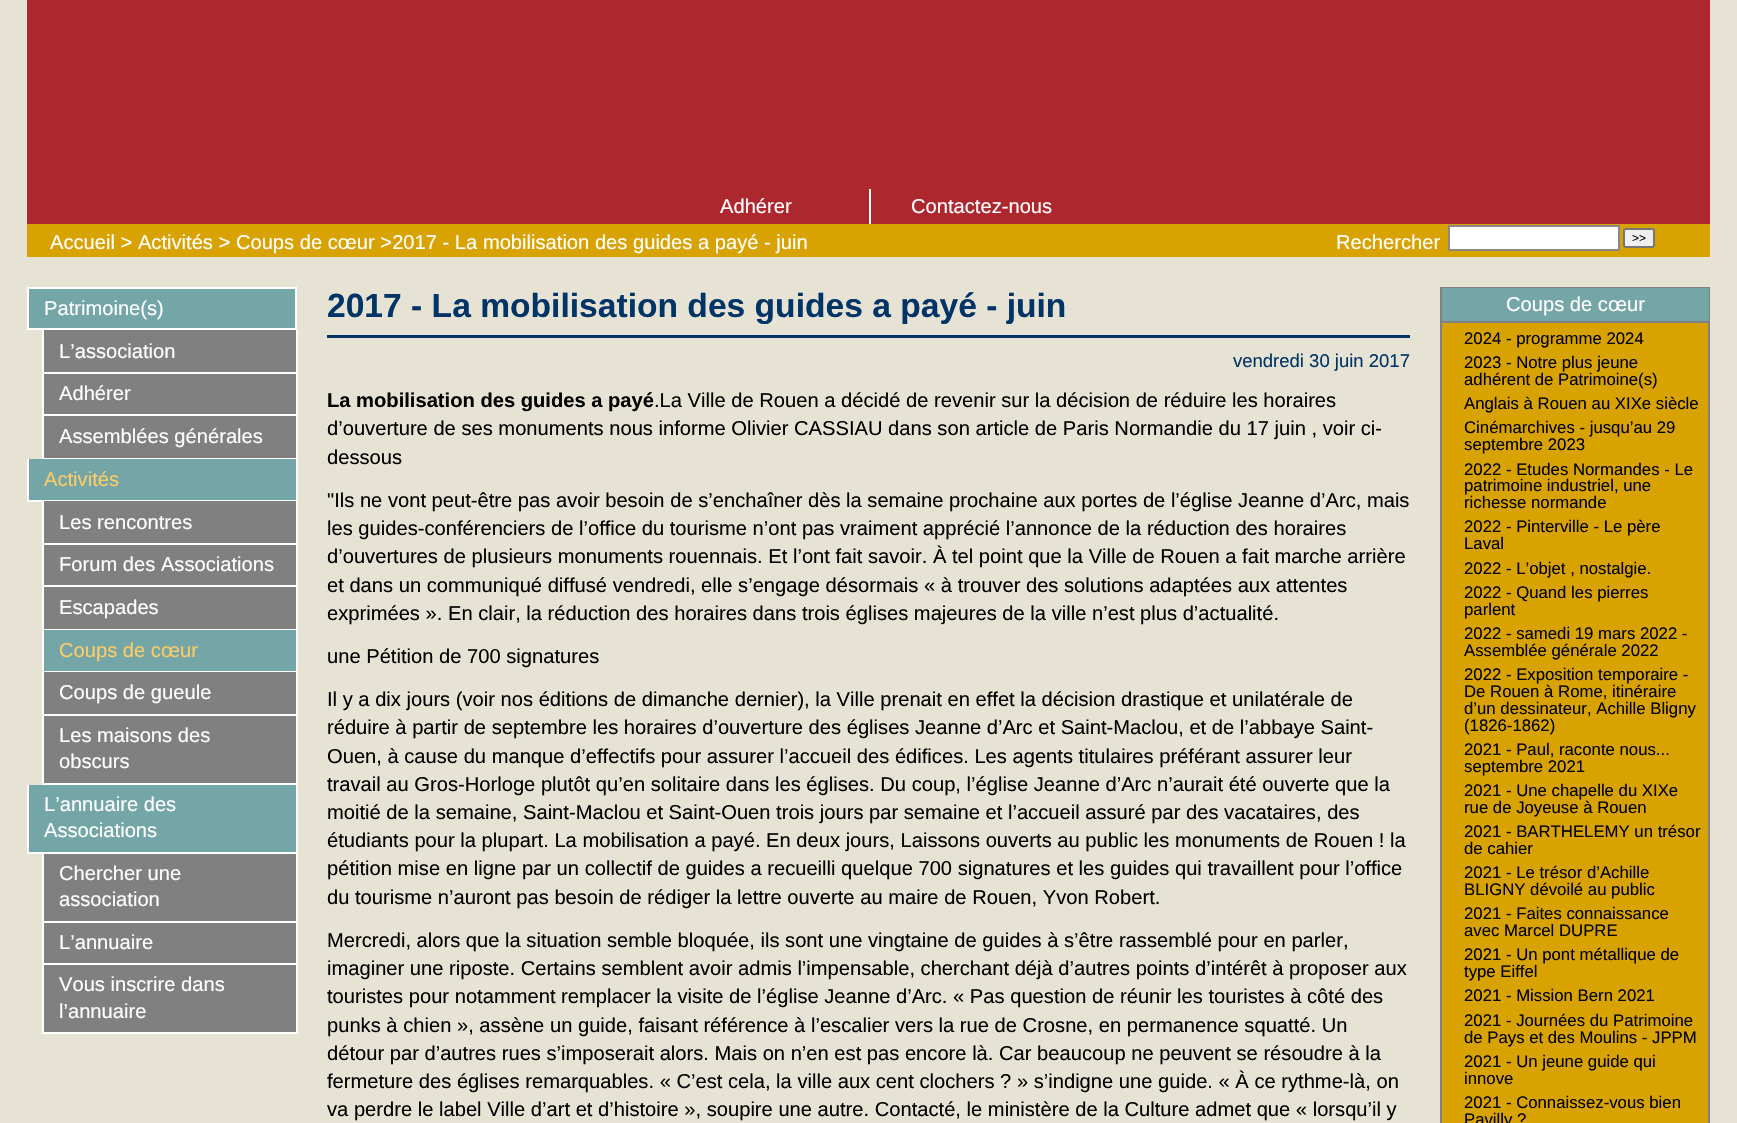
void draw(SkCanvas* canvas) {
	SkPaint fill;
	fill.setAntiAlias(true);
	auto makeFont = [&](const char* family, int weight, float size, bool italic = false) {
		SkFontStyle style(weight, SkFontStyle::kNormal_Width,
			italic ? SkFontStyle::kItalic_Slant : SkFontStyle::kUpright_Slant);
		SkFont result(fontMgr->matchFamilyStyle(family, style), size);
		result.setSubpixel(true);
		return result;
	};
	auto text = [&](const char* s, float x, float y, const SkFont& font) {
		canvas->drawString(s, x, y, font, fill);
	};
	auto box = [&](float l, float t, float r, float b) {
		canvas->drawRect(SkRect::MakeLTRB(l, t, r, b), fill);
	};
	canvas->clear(0xFFE6E3D5);
	fill.setColor(0xFFAD282E);
	box(27, 0, 1710, 224);
	fill.setColor(0xFFFFFFFF);
	box(869, 189, 871, 224);
	fill.setColor(0xFFD8A200);
	box(27, 224, 1710, 257);
	fill.setColor(0xFFFFFFFF);
	canvas->drawRect(SkRect::MakeLTRB(1449, 226, 1619, 250), fill);
	fill.setStyle(SkPaint::kStroke_Style);
	fill.setStrokeWidth(2);
	fill.setColor(0xFF888888);
	canvas->drawRect(SkRect::MakeLTRB(1449, 226, 1619, 250), fill);
	fill.setStyle(SkPaint::kFill_Style);
	fill.setColor(0xFFEFEFEF);
	canvas->drawRoundRect(SkRect::MakeLTRB(1624, 229, 1654, 247), 2, 2, fill);
	fill.setStyle(SkPaint::kStroke_Style);
	fill.setColor(0xFF767676);
	canvas->drawRoundRect(SkRect::MakeLTRB(1624, 229, 1654, 247), 2, 2, fill);
	fill.setStyle(SkPaint::kFill_Style);
	fill.setColor(0xFF74A6A7);
	canvas->drawRect(SkRect::MakeLTRB(28, 288, 296, 329), fill);
	fill.setStyle(SkPaint::kStroke_Style);
	fill.setColor(0xFFFFFFFF);
	canvas->drawRect(SkRect::MakeLTRB(28, 288, 296, 329), fill);
	fill.setStyle(SkPaint::kFill_Style);
	fill.setColor(0xFF808080);
	box(44, 330, 296, 372);
	fill.setColor(0xFFFFFFFF);
	box(296, 330, 298, 501);
	box(42, 372, 297, 374);
	box(42, 330, 44, 374);
	fill.setColor(0xFF808080);
	box(44, 374, 296, 414);
	fill.setColor(0xFFFFFFFF);
	box(42, 414, 297, 416);
	box(42, 374, 44, 416);
	fill.setColor(0xFF808080);
	box(44, 416, 296, 458);
	fill.setColor(0xFFFFFFFF);
	box(42, 458, 297, 459);
	box(42, 416, 44, 459);
	fill.setColor(0xFF74A6A7);
	box(29, 459, 296, 500);
	fill.setColor(0xFFFFFFFF);
	box(27, 500, 297, 502);
	box(27, 459, 29, 501);
	fill.setColor(0xFF808080);
	box(44, 501, 296, 543);
	fill.setColor(0xFFFFFFFF);
	box(296, 501, 298, 1034);
	box(42, 543, 297, 545);
	box(42, 501, 44, 545);
	fill.setColor(0xFF808080);
	box(44, 545, 296, 585);
	fill.setColor(0xFFFFFFFF);
	box(42, 585, 297, 587);
	box(42, 545, 44, 587);
	fill.setColor(0xFF808080);
	box(44, 587, 296, 629);
	fill.setColor(0xFFFFFFFF);
	box(42, 629, 297, 630);
	box(42, 587, 44, 630);
	fill.setColor(0xFF74A6A7);
	box(44, 630, 296, 671);
	fill.setColor(0xFFFFFFFF);
	box(42, 671, 297, 672);
	box(42, 630, 44, 672);
	fill.setColor(0xFF808080);
	box(44, 672, 296, 714);
	fill.setColor(0xFFFFFFFF);
	box(42, 714, 297, 716);
	box(42, 672, 44, 716);
	fill.setColor(0xFF808080);
	box(44, 716, 296, 783);
	fill.setColor(0xFFFFFFFF);
	box(42, 783, 297, 785);
	box(42, 716, 44, 785);
	fill.setColor(0xFF74A6A7);
	box(29, 785, 296, 852);
	fill.setColor(0xFFFFFFFF);
	box(27, 852, 297, 854);
	box(27, 785, 29, 854);
	fill.setColor(0xFF808080);
	box(44, 854, 296, 921);
	fill.setColor(0xFFFFFFFF);
	box(42, 921, 297, 923);
	box(42, 854, 44, 923);
	fill.setColor(0xFF808080);
	box(44, 923, 296, 963);
	fill.setColor(0xFFFFFFFF);
	box(42, 963, 297, 965);
	box(42, 923, 44, 965);
	fill.setColor(0xFF808080);
	box(44, 965, 296, 1032);
	fill.setColor(0xFFFFFFFF);
	box(42, 1032, 297, 1034);
	box(42, 965, 44, 1034);
	fill.setColor(0xFF003366);
	box(327, 335, 1410, 338);
	fill.setColor(0xFFD8A200);
	box(1442, 323, 1708, 1123);
	fill.setStyle(SkPaint::kStroke_Style);
	fill.setColor(0xFF808080);
	canvas->drawRect(SkRect::MakeLTRB(1441, 288, 1709, 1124), fill);
	fill.setStyle(SkPaint::kFill_Style);
	fill.setColor(0xFF74A6A7);
	box(1442, 288, 1709, 321);
	fill.setColor(0xFF808080);
	box(1442, 321, 1709, 323);
	auto font1 = makeFont("Liberation Sans", 400, 20.15f);
	fill.setColor(0xFFFFFFFF);
	text("Adhérer", 720, 213, font1);
	text("Contactez-nous", 911, 213, font1);
	text("Accueil > Activités > Coups de cœur >2017 - La mobilisation des guides a payé - juin", 50, 249, font1);
	text("Rechercher", 1336, 249, font1);
	auto font2 = makeFont("Liberation Sans", 400, 12);
	fill.setColor(0xFF000000);
	text(">>", 1632, 242, font2);
	fill.setColor(0xFFFFFFFF);
	text("Patrimoine(s)", 44, 315, font1);
	text("L’association", 59, 358, font1);
	text("Adhérer", 59, 400, font1);
	text("Assemblées générales", 59, 443, font1);
	fill.setColor(0xFFFFCC66);
	text("Activités", 44, 486, font1);
	fill.setColor(0xFFFFFFFF);
	text("Les rencontres", 59, 529, font1);
	text("Forum des Associations", 59, 571, font1);
	text("Escapades", 59, 614, font1);
	fill.setColor(0xFFFFCC66);
	text("Coups de cœur", 59, 657, font1);
	fill.setColor(0xFFFFFFFF);
	text("Coups de gueule", 59, 699, font1);
	text("Les maisons des", 59, 742, font1);
	text("obscurs", 59, 768, font1);
	text("L’annuaire des", 44, 811, font1);
	text("Associations", 44, 837, font1);
	text("Chercher une", 59, 880, font1);
	text("association", 59, 906, font1);
	text("L’annuaire", 59, 949, font1);
	text("Vous inscrire dans", 59, 991, font1);
	text("l’annuaire", 59, 1018, font1);
	auto font3 = makeFont("Liberation Sans", 700, 33.6f);
	fill.setColor(0xFF003366);
	text("2017 - La mobilisation des guides a payé - juin", 327, 317, font3);
	auto font4 = makeFont("Liberation Sans", 400, 18.5f);
	text("vendredi 30 juin 2017", 1233, 367, font4);
	auto font5 = makeFont("Liberation Sans", 700, 20.15f);
	fill.setColor(0xFF000000);
	text("La mobilisation des guides a payé", 327, 407, font5);
	text(".La Ville de Rouen a décidé de revenir sur la décision de réduire les horaires", 654, 407, font1);
	text("d’ouverture de ses monuments nous informe Olivier CASSIAU dans son article de Paris Normandie du 17 juin , voir ci-", 327, 435, font1);
	text("dessous", 327, 464, font1);
	text("\"Ils ne vont peut-être pas avoir besoin de s’enchaîner dès la semaine prochaine aux portes de l’église Jeanne d’Arc, mais", 327, 507, font1);
	text("les guides-conférenciers de l’office du tourisme n’ont pas vraiment apprécié l’annonce de la réduction des horaires", 327, 535, font1);
	text("d’ouvertures de plusieurs monuments rouennais. Et l’ont fait savoir. À tel point que la Ville de Rouen a fait marche arrière", 327, 563, font1);
	text("et dans un communiqué diffusé vendredi, elle s’engage désormais « à trouver des solutions adaptées aux attentes", 327, 592, font1);
	text("exprimées ». En clair, la réduction des horaires dans trois églises majeures de la ville n’est plus d’actualité.", 327, 620, font1);
	text("une Pétition de 700 signatures", 327, 663, font1);
	text("Il y a dix jours (voir nos éditions de dimanche dernier), la Ville prenait en effet la décision drastique et unilatérale de", 327, 706, font1);
	text("réduire à partir de septembre les horaires d’ouverture des églises Jeanne d’Arc et Saint-Maclou, et de l’abbaye Saint-", 327, 734, font1);
	text("Ouen, à cause du manque d’effectifs pour assurer l’accueil des édifices. Les agents titulaires préférant assurer leur", 327, 763, font1);
	text("travail au Gros-Horloge plutôt qu’en solitaire dans les églises. Du coup, l’église Jeanne d’Arc n’aurait été ouverte que la", 327, 791, font1);
	text("moitié de la semaine, Saint-Maclou et Saint-Ouen trois jours par semaine et l’accueil assuré par des vacataires, des", 327, 819, font1);
	text("étudiants pour la plupart. La mobilisation a payé. En deux jours, Laissons ouverts au public les monuments de Rouen ! la", 327, 847, font1);
	text("pétition mise en ligne par un collectif de guides a recueilli quelque 700 signatures et les guides qui travaillent pour l’office", 327, 875, font1);
	text("du tourisme n’auront pas besoin de rédiger la lettre ouverte au maire de Rouen, Yvon Robert.", 327, 904, font1);
	text("Mercredi, alors que la situation semble bloquée, ils sont une vingtaine de guides à s’être rassemblé pour en parler,", 327, 947, font1);
	text("imaginer une riposte. Certains semblent avoir admis l’impensable, cherchant déjà d’autres points d’intérêt à proposer aux", 327, 975, font1);
	text("touristes pour notamment remplacer la visite de l’église Jeanne d’Arc. « Pas question de réunir les touristes à côté des", 327, 1003, font1);
	text("punks à chien », assène un guide, faisant référence à l’escalier vers la rue de Crosne, en permanence squatté. Un", 327, 1032, font1);
	text("détour par d’autres rues s’imposerait alors. Mais on n’en est pas encore là. Car beaucoup ne peuvent se résoudre à la", 327, 1060, font1);
	text("fermeture des églises remarquables. « C’est cela, la ville aux cent clochers ? » s’indigne une guide. « À ce rythme-là, on", 327, 1088, font1);
	text("va perdre le label Ville d’art et d’histoire », soupire une autre. Contacté, le ministère de la Culture admet que « lorsqu’il y", 327, 1116, font1);
	fill.setColor(0xFFFFFFFF);
	text("Coups de cœur", 1506, 311, font1);
	auto font6 = makeFont("Liberation Sans", 400, 16.75f);
	fill.setColor(0xFF000000);
	text("2024 - programme 2024", 1464, 344, font6);
	text("2023 - Notre plus jeune", 1464, 368, font6);
	text("adhérent de Patrimoine(s)", 1464, 385, font6);
	text("Anglais à Rouen au XIXe siècle", 1464, 409, font6);
	text("Cinémarchives - jusqu’au 29", 1464, 433, font6);
	text("septembre 2023", 1464, 450, font6);
	text("2022 - Etudes Normandes - Le", 1464, 475, font6);
	text("patrimoine industriel, une", 1464, 491, font6);
	text("richesse normande", 1464, 508, font6);
	text("2022 - Pinterville - Le père", 1464, 532, font6);
	text("Laval", 1464, 549, font6);
	text("2022 - L’objet , nostalgie.", 1464, 574, font6);
	text("2022 - Quand les pierres", 1464, 598, font6);
	text("parlent", 1464, 615, font6);
	text("2022 - samedi 19 mars 2022 -", 1464, 639, font6);
	text("Assemblée générale 2022", 1464, 656, font6);
	text("2022 - Exposition temporaire -", 1464, 680, font6);
	text("De Rouen à Rome, itinéraire", 1464, 697, font6);
	text("d’un dessinateur, Achille Bligny", 1464, 714, font6);
	text("(1826-1862)", 1464, 731, font6);
	text("2021 - Paul, raconte nous...", 1464, 755, font6);
	text("septembre 2021", 1464, 772, font6);
	text("2021 - Une chapelle du XIXe", 1464, 796, font6);
	text("rue de Joyeuse à Rouen", 1464, 813, font6);
	text("2021 - BARTHELEMY un trésor", 1464, 837, font6);
	text("de cahier", 1464, 854, font6);
	text("2021 - Le trésor d’Achille", 1464, 878, font6);
	text("BLIGNY dévoilé au public", 1464, 895, font6);
	text("2021 - Faites connaissance", 1464, 919, font6);
	text("avec Marcel DUPRE", 1464, 936, font6);
	text("2021 - Un pont métallique de", 1464, 960, font6);
	text("type Eiffel", 1464, 977, font6);
	text("2021 - Mission Bern 2021", 1464, 1001, font6);
	text("2021 - Journées du Patrimoine", 1464, 1026, font6);
	text("de Pays et des Moulins - JPPM", 1464, 1043, font6);
	text("2021 - Un jeune guide qui", 1464, 1067, font6);
	text("innove", 1464, 1084, font6);
	text("2021 - Connaissez-vous bien", 1464, 1108, font6);
	text("Pavilly ?", 1464, 1125, font6);
}
